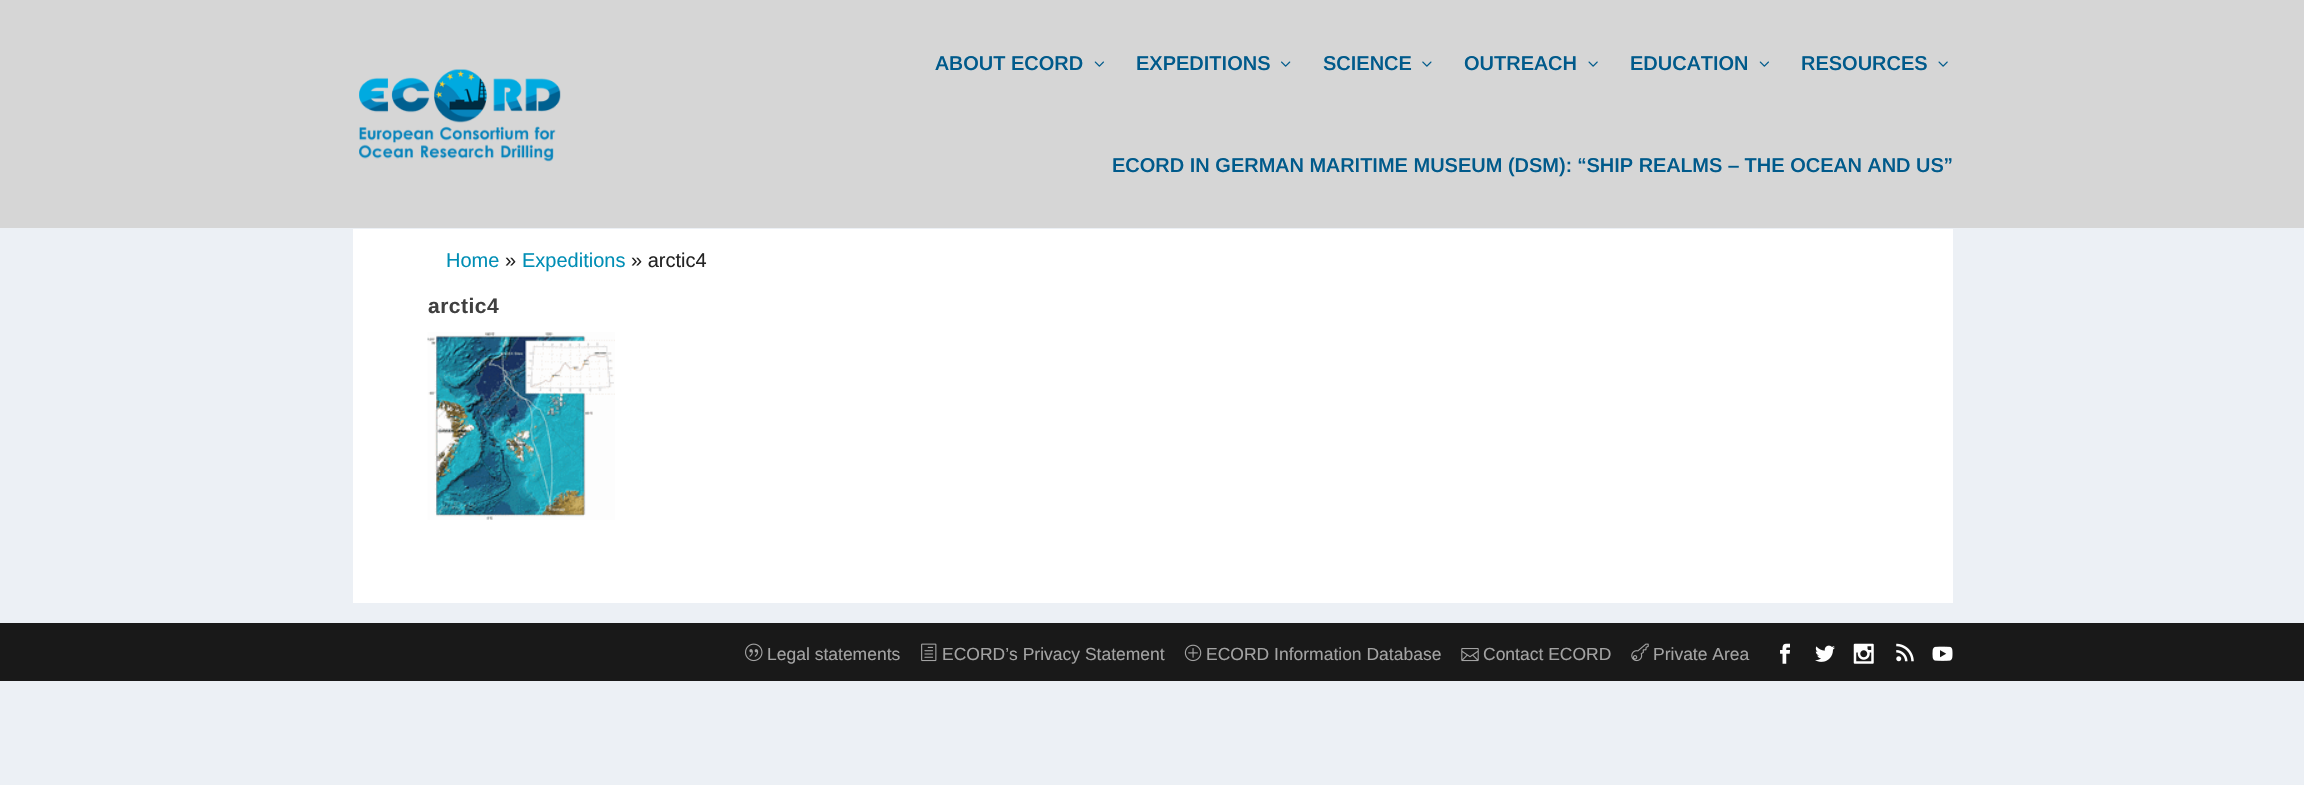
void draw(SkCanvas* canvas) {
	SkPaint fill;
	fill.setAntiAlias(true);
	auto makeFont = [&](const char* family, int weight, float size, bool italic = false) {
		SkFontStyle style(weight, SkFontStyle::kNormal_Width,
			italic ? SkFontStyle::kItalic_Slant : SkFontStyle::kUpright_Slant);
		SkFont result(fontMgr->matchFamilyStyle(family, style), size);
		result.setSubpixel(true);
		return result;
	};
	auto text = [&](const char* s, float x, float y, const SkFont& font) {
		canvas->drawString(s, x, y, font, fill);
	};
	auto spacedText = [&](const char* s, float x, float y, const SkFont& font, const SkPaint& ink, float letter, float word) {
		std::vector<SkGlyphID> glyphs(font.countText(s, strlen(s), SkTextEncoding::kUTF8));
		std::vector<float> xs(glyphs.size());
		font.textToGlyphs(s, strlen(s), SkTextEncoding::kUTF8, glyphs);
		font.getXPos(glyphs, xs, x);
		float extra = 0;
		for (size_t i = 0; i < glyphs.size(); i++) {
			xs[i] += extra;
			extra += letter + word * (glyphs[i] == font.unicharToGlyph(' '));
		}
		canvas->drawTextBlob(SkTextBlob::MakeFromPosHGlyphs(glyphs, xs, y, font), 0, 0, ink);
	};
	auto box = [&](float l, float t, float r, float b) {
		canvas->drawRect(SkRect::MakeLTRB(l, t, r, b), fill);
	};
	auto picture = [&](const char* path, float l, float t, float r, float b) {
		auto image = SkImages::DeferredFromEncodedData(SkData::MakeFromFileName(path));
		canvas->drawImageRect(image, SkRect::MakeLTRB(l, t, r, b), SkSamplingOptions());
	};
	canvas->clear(0xFFECF0F5);
	fill.setColor(0xFFD6D6D6);
	box(0, 0, 2304, 228);
	picture("image0.png", 359, 69, 561, 162);
	picture("image1.png", 1094, 61, 1104, 67);
	picture("image2.png", 1281, 61, 1291, 67);
	picture("image3.png", 1422, 61, 1432, 67);
	picture("image4.png", 1588, 61, 1598, 67);
	picture("image1.png", 1759, 61, 1769, 67);
	picture("image4.png", 1938, 61, 1948, 67);
	fill.setColor(0xFFFFFFFF);
	box(353, 229, 1953, 603);
	picture("image5.png", 427, 332, 615, 520);
	fill.setColor(0xFF191919);
	box(0, 623, 2304, 681);
	picture("image6.png", 745, 643, 763, 662);
	picture("image7.png", 921, 643, 937, 662);
	picture("image8.png", 1184, 644, 1202, 662);
	picture("image9.png", 1461, 648, 1479, 662);
	picture("image10.png", 1631, 643, 1649, 662);
	picture("image11.png", 1780, 643, 1790, 664);
	picture("image12.png", 1815, 645, 1835, 662);
	picture("image13.png", 1853, 643, 1874, 664);
	picture("image14.png", 1896, 643, 1914, 662);
	picture("image15.png", 1932, 646, 1953, 661);
	auto font1 = makeFont("Arimo", 600, 20);
	fill.setColor(0xFF005A8B);
	text("ABOUT ECORD", 935, 70, font1);
	text("EXPEDITIONS", 1136, 70, font1);
	text("SCIENCE", 1323, 70, font1);
	text("OUTREACH", 1464, 70, font1);
	text("EDUCATION", 1630, 70, font1);
	text("RESOURCES", 1801, 70, font1);
	text("ECORD IN GERMAN MARITIME MUSEUM (DSM): “SHIP REALMS – THE OCEAN AND US”", 1112, 172, font1);
	auto font2 = makeFont("Arimo", 400, 20);
	fill.setColor(0xFF008EB5);
	text("Home", 446, 267, font2);
	fill.setColor(0xFF242424);
	text("»", 505, 267, font2);
	fill.setColor(0xFF008EB5);
	text("Expeditions", 522, 267, font2);
	fill.setColor(0xFF242424);
	text("» arctic4", 631, 267, font2);
	auto font3 = makeFont("Arimo", 700, 21);
	fill.setColor(0xFF404040);
	spacedText("arctic4", 428, 313, font3, fill, 0.5f, 0);
	auto font4 = makeFont("Arimo", 400, 17.5f);
	fill.setColor(0xFFA3A3A3);
	text("Legal statements", 767, 660, font4);
	text("ECORD’s Privacy Statement", 942, 660, font4);
	text("ECORD Information Database", 1206, 660, font4);
	text("Contact ECORD", 1483, 660, font4);
	text("Private Area", 1653, 660, font4);
}
